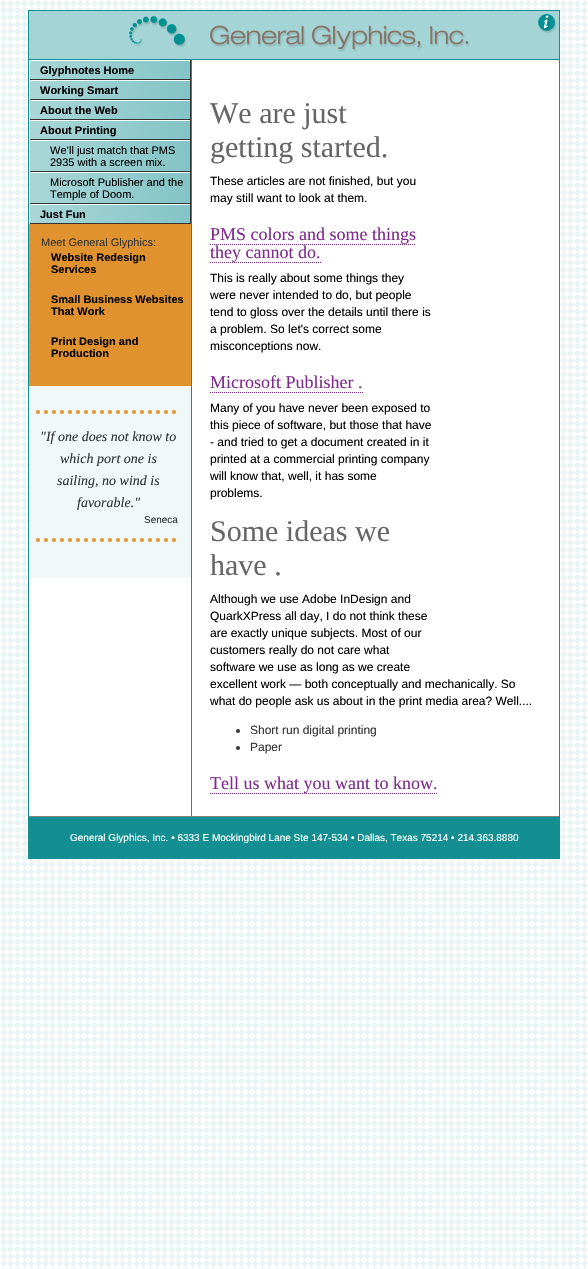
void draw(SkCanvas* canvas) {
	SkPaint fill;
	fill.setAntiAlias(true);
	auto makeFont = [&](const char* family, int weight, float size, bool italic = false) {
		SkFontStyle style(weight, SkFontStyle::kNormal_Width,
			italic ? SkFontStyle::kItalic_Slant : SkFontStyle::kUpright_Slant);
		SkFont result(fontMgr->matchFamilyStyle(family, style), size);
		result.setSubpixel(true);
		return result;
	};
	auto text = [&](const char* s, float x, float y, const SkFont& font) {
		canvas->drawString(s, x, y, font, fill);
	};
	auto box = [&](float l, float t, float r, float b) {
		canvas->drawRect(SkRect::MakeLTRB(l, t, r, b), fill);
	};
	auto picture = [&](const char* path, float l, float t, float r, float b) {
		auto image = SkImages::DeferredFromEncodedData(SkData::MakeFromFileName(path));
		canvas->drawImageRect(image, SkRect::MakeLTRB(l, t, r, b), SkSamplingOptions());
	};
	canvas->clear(0xFFFFFFFF);
	picture("image0.png", 0, 0, 588, 1269);
	fill.setColor(0xFFFFFFFF);
	box(29, 60, 559, 816);
	fill.setStyle(SkPaint::kStroke_Style);
	fill.setStrokeWidth(1);
	fill.setColor(0xFF138F92);
	canvas->drawRect(SkRect::MakeLTRB(28.5f, 10.5f, 559.5f, 858.5f), fill);
	fill.setStyle(SkPaint::kFill_Style);
	fill.setColor(0xFFA4D4D5);
	box(29, 11, 559, 59);
	fill.setColor(0xFF138F92);
	box(29, 59, 559, 60);
	picture("image1.png", 129, 16, 470, 52);
	picture("image2.png", 538, 14, 557, 34);
	fill.setColor(0xFFF0F8F8);
	box(29, 386, 191, 578);
	picture("image3.png", 30, 61, 190, 79);
	fill.setColor(0xFF333333);
	box(190, 60, 191, 224);
	box(29, 79, 191, 80);
	fill.setColor(0xFFFFFFFF);
	box(29, 79, 30, 80);
	picture("image3.png", 30, 81, 190, 99);
	fill.setColor(0xFF333333);
	box(29, 99, 191, 100);
	fill.setColor(0xFFFFFFFF);
	box(29, 99, 30, 100);
	picture("image3.png", 30, 101, 190, 119);
	fill.setColor(0xFF333333);
	box(29, 119, 191, 120);
	fill.setColor(0xFFFFFFFF);
	box(29, 119, 30, 120);
	picture("image3.png", 30, 121, 190, 139);
	fill.setColor(0xFF333333);
	box(29, 139, 191, 140);
	fill.setColor(0xFFFFFFFF);
	box(29, 139, 30, 140);
	picture("image4.png", 30, 141, 190, 171);
	fill.setColor(0xFF333333);
	box(29, 171, 191, 172);
	fill.setColor(0xFFFFFFFF);
	box(29, 171, 30, 172);
	picture("image4.png", 30, 173, 190, 203);
	fill.setColor(0xFF333333);
	box(29, 203, 191, 204);
	fill.setColor(0xFFFFFFFF);
	box(29, 203, 30, 204);
	picture("image3.png", 30, 205, 190, 223);
	fill.setColor(0xFF333333);
	box(29, 223, 191, 224);
	fill.setColor(0xFFFFFFFF);
	box(29, 223, 30, 224);
	fill.setColor(0xFFE0922F);
	box(29, 224, 191, 386);
	fill.setStyle(SkPaint::kStroke_Style);
	fill.setStrokeWidth(4);
	fill.setStrokeCap(SkPaint::kRound_Cap);
	fill.setPathEffect(SkDashPathEffect::Make({{0, 8}}, 0));
	canvas->drawPath(SkPathBuilder().moveTo(38, 412).lineTo(178, 412).detach(), fill);
	fill.setPathEffect(nullptr);
	fill.setPathEffect(SkDashPathEffect::Make({{0, 8}}, 0));
	canvas->drawPath(SkPathBuilder().moveTo(38, 540).lineTo(178, 540).detach(), fill);
	fill.setPathEffect(nullptr);
	fill.setStyle(SkPaint::kFill_Style);
	fill.setColor(0xFF138F92);
	box(191, 60, 192, 816);
	fill.setStyle(SkPaint::kStroke_Style);
	fill.setStrokeWidth(1);
	fill.setStrokeCap(SkPaint::kButt_Cap);
	fill.setColor(0xFF7E2C8B);
	fill.setPathEffect(SkDashPathEffect::Make({{1, 1}}, 0));
	canvas->drawPath(SkPathBuilder().moveTo(210, 244.5f).lineTo(416, 244.5f).detach(), fill);
	fill.setPathEffect(nullptr);
	fill.setPathEffect(SkDashPathEffect::Make({{1, 1}}, 0));
	canvas->drawPath(SkPathBuilder().moveTo(210, 262.5f).lineTo(321, 262.5f).detach(), fill);
	fill.setPathEffect(nullptr);
	fill.setPathEffect(SkDashPathEffect::Make({{1, 1}}, 0));
	canvas->drawPath(SkPathBuilder().moveTo(210, 392.5f).lineTo(363, 392.5f).detach(), fill);
	fill.setPathEffect(nullptr);
	fill.setStyle(SkPaint::kFill_Style);
	fill.setColor(0xFF333333);
	canvas->drawCircle(238, 731, 2, fill);
	canvas->drawCircle(238, 748, 2, fill);
	fill.setStyle(SkPaint::kStroke_Style);
	fill.setColor(0xFF7E2C8B);
	fill.setPathEffect(SkDashPathEffect::Make({{1, 1}}, 0));
	canvas->drawPath(SkPathBuilder().moveTo(210, 793.5f).lineTo(438, 793.5f).detach(), fill);
	fill.setPathEffect(nullptr);
	fill.setStyle(SkPaint::kFill_Style);
	fill.setColor(0xFF138F92);
	box(29, 817, 559, 858);
	fill.setColor(0xFF808080);
	box(29, 816, 559, 817);
	auto font1 = makeFont("Liberation Sans", 700, 11);
	fill.setColor(0xFF000000);
	text("Glyphnotes Home", 40, 74, font1);
	text("Working Smart", 40, 94, font1);
	text("About the Web", 40, 114, font1);
	text("About Printing", 40, 134, font1);
	auto font2 = makeFont("Liberation Sans", 400, 11);
	text("We’ll just match that PMS", 50, 154, font2);
	text("2935 with a screen mix.", 50, 166, font2);
	text("Microsoft Publisher and the", 50, 186, font2);
	text("Temple of Doom.", 50, 198, font2);
	text("Just Fun", 40, 218, font1);
	fill.setColor(0xFF333333);
	text("Meet General Glyphics:", 41, 246, font2);
	fill.setColor(0xFF000000);
	text("Website Redesign", 51, 261, font1);
	text("Services", 51, 273, font1);
	text("Small Business Websites", 51, 303, font1);
	text("That Work", 51, 315, font1);
	text("Print Design and", 51, 345, font1);
	text("Production", 51, 357, font1);
	auto font3 = makeFont("Liberation Serif", 400, 14, true);
	fill.setColor(0xFF333333);
	text("\"If one does not know to", 40, 441, font3);
	text("which port one is", 60, 463, font3);
	text("sailing, no wind is", 57, 485, font3);
	text("favorable.\"", 77, 507, font3);
	auto font4 = makeFont("Liberation Sans", 400, 10);
	text("Seneca", 144, 523, font4);
	auto font5 = makeFont("Liberation Serif", 400, 30);
	fill.setColor(0xFF666666);
	text("We are just", 210, 123, font5);
	text("getting started.", 210, 157, font5);
	auto font6 = makeFont("Liberation Sans", 400, 12);
	fill.setColor(0xFF000000);
	text("These articles are not finished, but you", 210, 185, font6);
	text("may still want to look at them.", 210, 202, font6);
	auto font7 = makeFont("Liberation Serif", 400, 18);
	fill.setColor(0xFF7E2C8B);
	text("PMS colors and some things", 210, 240, font7);
	text("they cannot do.", 210, 258, font7);
	fill.setColor(0xFF000000);
	text("This is really about some things they", 210, 282, font6);
	text("were never intended to do, but people", 210, 299, font6);
	text("tend to gloss over the details until there is", 210, 316, font6);
	text("a problem. So let's correct some", 210, 333, font6);
	text("misconceptions now.", 210, 350, font6);
	fill.setColor(0xFF7E2C8B);
	text("Microsoft Publisher .", 210, 388, font7);
	fill.setColor(0xFF000000);
	text("Many of you have never been exposed to", 210, 412, font6);
	text("this piece of software, but those that have", 210, 429, font6);
	text("- and tried to get a document created in it", 210, 446, font6);
	text("printed at a commercial printing company", 210, 463, font6);
	text("will know that, well, it has some", 210, 480, font6);
	text("problems.", 210, 497, font6);
	fill.setColor(0xFF666666);
	text("Some ideas we", 210, 541, font5);
	text("have .", 210, 575, font5);
	fill.setColor(0xFF000000);
	text("Although we use Adobe InDesign and", 210, 603, font6);
	text("QuarkXPress all day, I do not think these", 210, 620, font6);
	text("are exactly unique subjects. Most of our", 210, 637, font6);
	text("customers really do not care what", 210, 654, font6);
	text("software we use as long as we create", 210, 671, font6);
	text("excellent work — both conceptually and mechanically. So", 210, 688, font6);
	text("what do people ask us about in the print media area? Well....", 210, 705, font6);
	fill.setColor(0xFF333333);
	text("Short run digital printing", 250, 734, font6);
	text("Paper", 250, 751, font6);
	fill.setColor(0xFF7E2C8B);
	text("Tell us what you want to know.", 210, 789, font7);
	fill.setColor(0xFFFFFFFF);
	text("General Glyphics, Inc. • 6333 E Mockingbird Lane Ste 147-534 • Dallas, Texas 75214 • 214.363.8880", 70, 841, font4);
}
